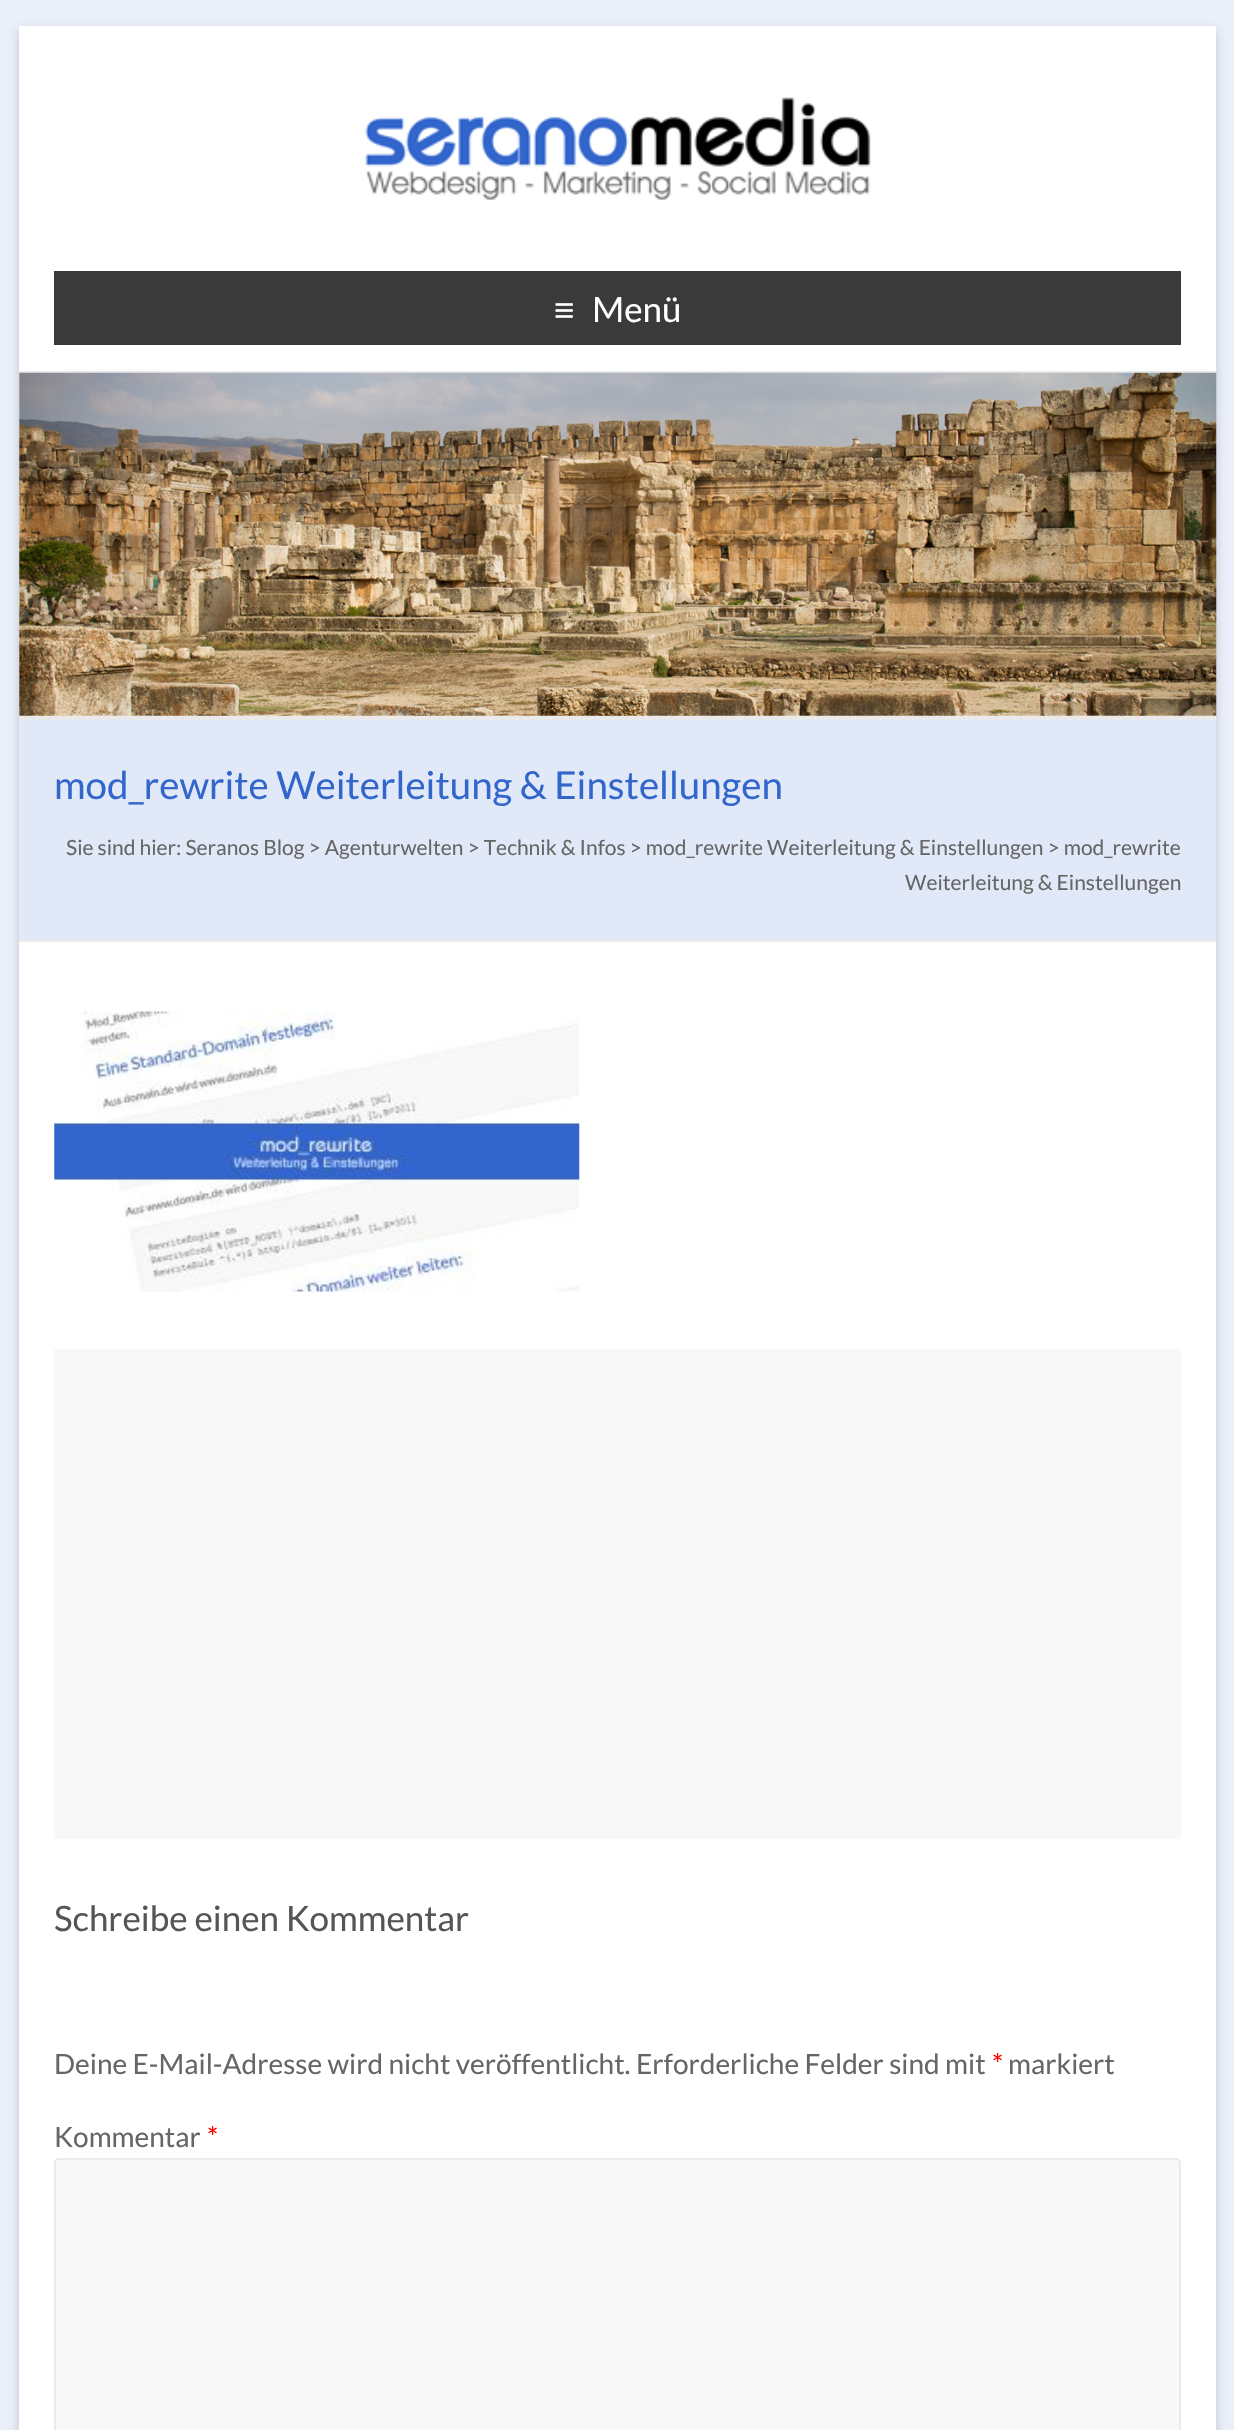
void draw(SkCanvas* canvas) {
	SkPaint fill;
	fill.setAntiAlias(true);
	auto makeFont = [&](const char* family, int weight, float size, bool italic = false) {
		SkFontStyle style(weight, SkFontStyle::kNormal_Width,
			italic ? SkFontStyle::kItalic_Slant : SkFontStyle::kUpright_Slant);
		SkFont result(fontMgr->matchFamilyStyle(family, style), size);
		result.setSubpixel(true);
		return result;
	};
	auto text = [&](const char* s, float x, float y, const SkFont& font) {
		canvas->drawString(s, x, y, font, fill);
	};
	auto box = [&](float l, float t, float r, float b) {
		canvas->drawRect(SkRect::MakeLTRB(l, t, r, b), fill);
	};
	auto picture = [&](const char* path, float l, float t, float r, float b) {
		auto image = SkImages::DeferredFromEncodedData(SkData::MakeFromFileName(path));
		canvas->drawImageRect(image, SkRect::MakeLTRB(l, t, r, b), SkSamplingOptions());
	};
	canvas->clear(0xFFEAEFF9);
	fill.setColor(0x4D646464);
	fill.setMaskFilter(SkMaskFilter::MakeBlur(kNormal_SkBlurStyle, 5));
	canvas->drawRect(SkRect::MakeLTRB(19, 30, 1216, 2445), fill);
	fill.setMaskFilter(nullptr);
	fill.setColor(0xFFFFFFFF);
	box(19, 26, 1216, 2430);
	fill.setColor(0xFFEAEAEA);
	box(19, 371, 1216, 373);
	picture("image0.png", 365, 97, 871, 200);
	fill.setColor(0xFF3A3A3A);
	box(54, 271, 1181, 345);
	picture("image1.png", 19, 372, 1217, 716);
	fill.setColor(0xFFE1E8F7);
	box(19, 720, 1216, 940);
	fill.setColor(0xFFEAEAEA);
	box(19, 716, 1216, 720);
	box(19, 940, 1216, 942);
	picture("image2.png", 54, 1011, 580, 1292);
	fill.setColor(0xFFF8F8F8);
	box(54, 1349, 1181, 1839);
	canvas->drawRoundRect(SkRect::MakeLTRB(55, 2159, 1180, 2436), 4, 4, fill);
	fill.setStyle(SkPaint::kStroke_Style);
	fill.setStrokeWidth(2);
	fill.setColor(0xFFEAEAEA);
	canvas->drawRoundRect(SkRect::MakeLTRB(55, 2159, 1180, 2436), 4, 4, fill);
	auto font1 = makeFont("Liberation Sans", 400, 35);
	fill.setStyle(SkPaint::kFill_Style);
	fill.setColor(0xFFFFFFFF);
	text("≡", 554, 322, font1);
	auto font2 = makeFont("Lato", 400, 35);
	text("Menü", 592, 322, font2);
	auto font3 = makeFont("Lato", 400, 38.5f);
	fill.setColor(0xFF3366CC);
	text("mod_rewrite Weiterleitung & Einstellungen", 54, 799, font3);
	auto font4 = makeFont("Lato", 400, 21);
	fill.setColor(0xFF666666);
	text("Sie sind hier: Seranos Blog > Agenturwelten > Technik & Infos > mod_rewrite Weiterleitung & Einstellungen > mod_rewrite", 66, 855, font4);
	text("Weiterleitung & Einstellungen", 905, 890, font4);
	fill.setColor(0xFF555555);
	text("Schreibe einen Kommentar", 54, 1931, font2);
	auto font5 = makeFont("Lato", 400, 28);
	fill.setColor(0xFF666666);
	text("Deine E-Mail-Adresse wird nicht veröffentlicht. Erforderliche Felder sind mit", 54, 2074, font5);
	fill.setColor(0xFFFF0000);
	text("*", 992, 2074, font5);
	fill.setColor(0xFF666666);
	text("markiert", 1008, 2074, font5);
	text("Kommentar", 54, 2147, font5);
	fill.setColor(0xFFFF0000);
	text("*", 207, 2147, font5);
}
